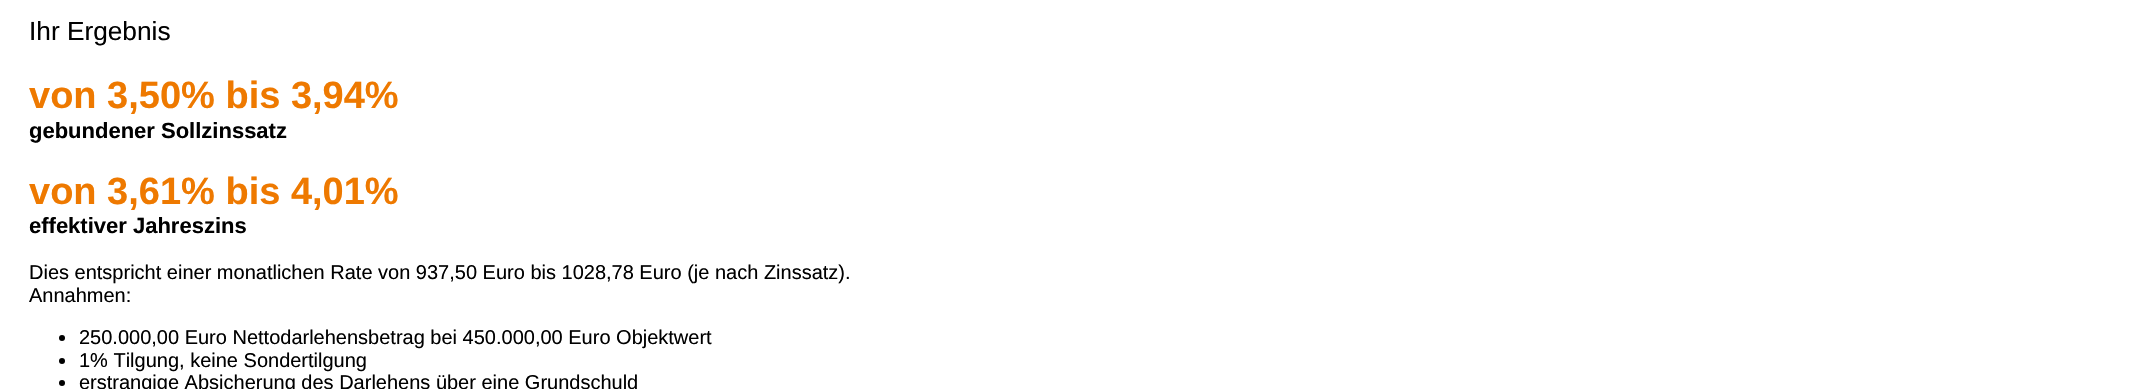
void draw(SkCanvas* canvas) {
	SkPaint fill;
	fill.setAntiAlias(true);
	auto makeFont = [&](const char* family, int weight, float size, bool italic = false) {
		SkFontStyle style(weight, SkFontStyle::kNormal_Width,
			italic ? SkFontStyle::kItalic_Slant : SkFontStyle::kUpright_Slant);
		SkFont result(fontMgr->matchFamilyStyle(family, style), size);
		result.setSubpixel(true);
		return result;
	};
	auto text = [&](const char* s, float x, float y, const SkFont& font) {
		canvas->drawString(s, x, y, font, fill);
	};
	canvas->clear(0xFFFFFFFF);
	fill.setColor(0xFF000000);
	canvas->drawCircle(62, 338, 3, fill);
	canvas->drawCircle(62, 361, 3, fill);
	canvas->drawCircle(62, 383, 3, fill);
	auto font1 = makeFont("Liberation Sans", 400, 26.25f);
	text("Ihr Ergebnis", 29, 40, font1);
	auto font2 = makeFont("Liberation Sans", 700, 38);
	fill.setColor(0xFFEE7900);
	text("von 3,50% bis 3,94%", 29, 108, font2);
	auto font3 = makeFont("Liberation Sans", 700, 22);
	fill.setColor(0xFF000000);
	text("gebundener Sollzinssatz", 29, 138, font3);
	fill.setColor(0xFFEE7900);
	text("von 3,61% bis 4,01%", 29, 204, font2);
	fill.setColor(0xFF000000);
	text("effektiver Jahreszins", 29, 233, font3);
	auto font4 = makeFont("Liberation Sans", 400, 20);
	text("Dies entspricht einer monatlichen Rate von 937,50 Euro bis 1028,78 Euro (je nach Zinssatz).", 29, 279, font4);
	text("Annahmen:", 29, 302, font4);
	text("250.000,00 Euro Nettodarlehensbetrag bei 450.000,00 Euro Objektwert", 79, 344, font4);
	text("1% Tilgung, keine Sondertilgung", 79, 367, font4);
	text("erstrangige Absicherung des Darlehens über eine Grundschuld", 79, 389, font4);
}
